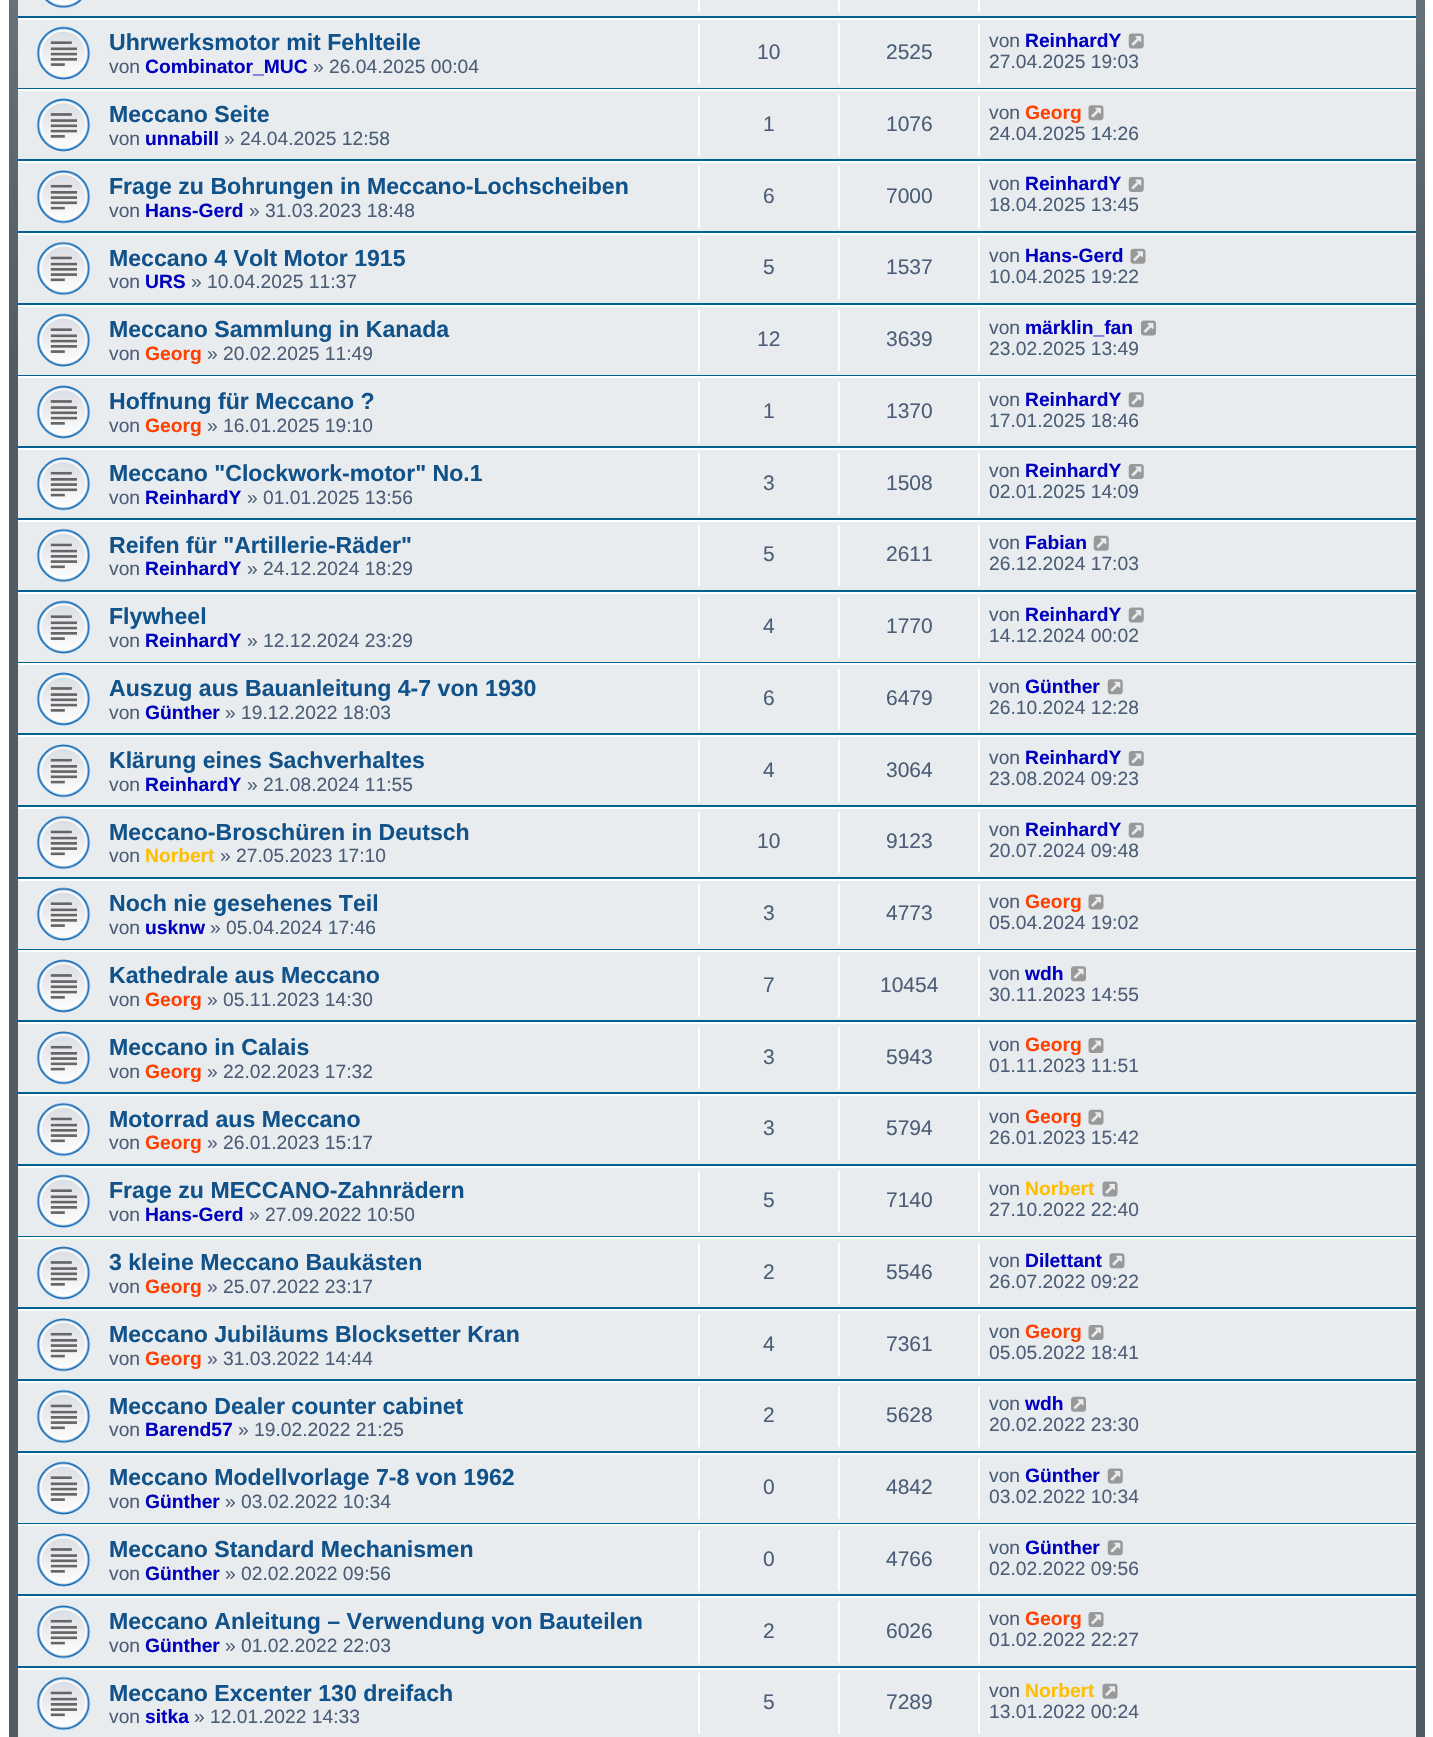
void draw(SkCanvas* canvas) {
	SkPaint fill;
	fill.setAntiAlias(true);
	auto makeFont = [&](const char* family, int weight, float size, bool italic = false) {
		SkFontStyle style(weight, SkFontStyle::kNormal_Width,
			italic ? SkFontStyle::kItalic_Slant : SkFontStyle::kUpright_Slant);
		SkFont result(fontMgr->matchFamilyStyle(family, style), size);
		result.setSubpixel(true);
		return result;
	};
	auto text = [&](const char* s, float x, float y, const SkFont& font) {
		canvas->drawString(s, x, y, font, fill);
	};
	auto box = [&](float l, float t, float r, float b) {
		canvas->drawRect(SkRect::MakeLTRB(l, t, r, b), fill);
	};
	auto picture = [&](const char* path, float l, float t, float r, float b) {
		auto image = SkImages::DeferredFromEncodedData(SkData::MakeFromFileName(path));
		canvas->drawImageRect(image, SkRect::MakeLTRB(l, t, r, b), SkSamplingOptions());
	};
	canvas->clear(0xFFFFFFFF);
	{
		const SkColor colors[] = {0xFF7C8891, 0xFF7C8790, 0xFF76828B, 0xFF5B666F, 0xFF505C65, 0xFF505C65};
		const float stops[] = {0, 0.04f, 0.1f, 0.29f, 0.38f, 1};
		const SkPoint ends[] = {{717, -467}, {717, 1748}};
		fill.setShader(SkGradientShader::MakeLinear(ends, colors, stops, 6, SkTileMode::kClamp));
		fill.setAlpha(255);
	}
	box(9, 0, 1425, 1737);
	fill.setShader(nullptr);
	fill.setColor(0xFFE8ECEE);
	box(18, 0, 1416, 16);
	fill.setColor(0xFF00608F);
	box(18, 16, 1416, 18);
	picture("image0.png", 44, 0, 83, 9);
	fill.setColor(0xFFFFFFFF);
	box(698, 0, 700, 12);
	box(838, 0, 840, 12);
	box(978, 0, 980, 12);
	fill.setColor(0xFFE8ECEE);
	box(18, 20, 1416, 88);
	fill.setColor(0xFFFFFFFF);
	box(18, 18, 1416, 20);
	fill.setColor(0xFF00608F);
	box(18, 88, 1416, 89);
	picture("image1.png", 36, 26, 91, 80);
	fill.setColor(0xFFFFFFFF);
	box(698, 23, 700, 84);
	box(838, 23, 840, 84);
	box(978, 23, 980, 84);
	picture("image2.png", 1128, 33, 1144, 49);
	fill.setColor(0xFFE8ECEE);
	box(18, 91, 1416, 159);
	fill.setColor(0xFFFFFFFF);
	box(18, 89, 1416, 91);
	fill.setColor(0xFF00608F);
	box(18, 159, 1416, 161);
	picture("image3.png", 36, 98, 91, 152);
	fill.setColor(0xFFFFFFFF);
	box(698, 95, 700, 156);
	box(838, 95, 840, 156);
	box(978, 95, 980, 156);
	picture("image4.png", 1088, 105, 1104, 121);
	fill.setColor(0xFFE8ECEE);
	box(18, 163, 1416, 231);
	fill.setColor(0xFFFFFFFF);
	box(18, 161, 1416, 163);
	fill.setColor(0xFF00608F);
	box(18, 231, 1416, 233);
	picture("image5.png", 36, 170, 91, 224);
	fill.setColor(0xFFFFFFFF);
	box(698, 166, 700, 228);
	box(838, 166, 840, 228);
	box(978, 166, 980, 228);
	picture("image6.png", 1128, 177, 1144, 192);
	fill.setColor(0xFFE8ECEE);
	box(18, 235, 1416, 303);
	fill.setColor(0xFFFFFFFF);
	box(18, 233, 1416, 235);
	fill.setColor(0xFF00608F);
	box(18, 303, 1416, 305);
	picture("image7.png", 36, 241, 91, 296);
	fill.setColor(0xFFFFFFFF);
	box(698, 238, 700, 299);
	box(838, 238, 840, 299);
	box(978, 238, 980, 299);
	picture("image8.png", 1130, 248, 1146, 264);
	fill.setColor(0xFFE8ECEE);
	box(18, 307, 1416, 375);
	fill.setColor(0xFFFFFFFF);
	box(18, 305, 1416, 307);
	fill.setColor(0xFF00608F);
	box(18, 375, 1416, 376);
	picture("image1.png", 36, 313, 91, 367);
	fill.setColor(0xFFFFFFFF);
	box(698, 310, 700, 371);
	box(838, 310, 840, 371);
	box(978, 310, 980, 371);
	picture("image9.png", 1141, 320, 1156, 336);
	fill.setColor(0xFFE8ECEE);
	box(18, 378, 1416, 446);
	fill.setColor(0xFFFFFFFF);
	box(18, 376, 1416, 378);
	fill.setColor(0xFF00608F);
	box(18, 446, 1416, 448);
	picture("image3.png", 36, 385, 91, 439);
	fill.setColor(0xFFFFFFFF);
	box(698, 382, 700, 443);
	box(838, 382, 840, 443);
	box(978, 382, 980, 443);
	picture("image10.png", 1128, 392, 1144, 408);
	fill.setColor(0xFFE8ECEE);
	box(18, 450, 1416, 518);
	fill.setColor(0xFFFFFFFF);
	box(18, 448, 1416, 450);
	fill.setColor(0xFF00608F);
	box(18, 518, 1416, 520);
	picture("image5.png", 36, 457, 91, 511);
	fill.setColor(0xFFFFFFFF);
	box(698, 453, 700, 515);
	box(838, 453, 840, 515);
	box(978, 453, 980, 515);
	picture("image6.png", 1128, 464, 1144, 479);
	fill.setColor(0xFFE8ECEE);
	box(18, 522, 1416, 590);
	fill.setColor(0xFFFFFFFF);
	box(18, 520, 1416, 522);
	fill.setColor(0xFF00608F);
	box(18, 590, 1416, 592);
	picture("image7.png", 36, 528, 91, 583);
	fill.setColor(0xFFFFFFFF);
	box(698, 525, 700, 586);
	box(838, 525, 840, 586);
	box(978, 525, 980, 586);
	picture("image11.png", 1093, 535, 1109, 551);
	fill.setColor(0xFFE8ECEE);
	box(18, 594, 1416, 662);
	fill.setColor(0xFFFFFFFF);
	box(18, 592, 1416, 594);
	fill.setColor(0xFF00608F);
	box(18, 662, 1416, 663);
	picture("image1.png", 36, 600, 91, 654);
	fill.setColor(0xFFFFFFFF);
	box(698, 597, 700, 658);
	box(838, 597, 840, 658);
	box(978, 597, 980, 658);
	picture("image2.png", 1128, 607, 1144, 623);
	fill.setColor(0xFFE8ECEE);
	box(18, 665, 1416, 733);
	fill.setColor(0xFFFFFFFF);
	box(18, 663, 1416, 665);
	fill.setColor(0xFF00608F);
	box(18, 733, 1416, 735);
	picture("image3.png", 36, 672, 91, 726);
	fill.setColor(0xFFFFFFFF);
	box(698, 669, 700, 730);
	box(838, 669, 840, 730);
	box(978, 669, 980, 730);
	picture("image10.png", 1107, 679, 1123, 695);
	fill.setColor(0xFFE8ECEE);
	box(18, 737, 1416, 805);
	fill.setColor(0xFFFFFFFF);
	box(18, 735, 1416, 737);
	fill.setColor(0xFF00608F);
	box(18, 805, 1416, 807);
	picture("image5.png", 36, 744, 91, 798);
	fill.setColor(0xFFFFFFFF);
	box(698, 740, 700, 802);
	box(838, 740, 840, 802);
	box(978, 740, 980, 802);
	picture("image6.png", 1128, 751, 1144, 766);
	fill.setColor(0xFFE8ECEE);
	box(18, 809, 1416, 877);
	fill.setColor(0xFFFFFFFF);
	box(18, 807, 1416, 809);
	fill.setColor(0xFF00608F);
	box(18, 877, 1416, 879);
	picture("image7.png", 36, 815, 91, 870);
	fill.setColor(0xFFFFFFFF);
	box(698, 812, 700, 873);
	box(838, 812, 840, 873);
	box(978, 812, 980, 873);
	picture("image11.png", 1128, 822, 1144, 838);
	fill.setColor(0xFFE8ECEE);
	box(18, 881, 1416, 949);
	fill.setColor(0xFFFFFFFF);
	box(18, 879, 1416, 881);
	fill.setColor(0xFF00608F);
	box(18, 949, 1416, 950);
	picture("image12.png", 36, 887, 91, 941);
	fill.setColor(0xFFFFFFFF);
	box(698, 884, 700, 945);
	box(838, 884, 840, 945);
	box(978, 884, 980, 945);
	picture("image13.png", 1088, 894, 1104, 910);
	fill.setColor(0xFFE8ECEE);
	box(18, 952, 1416, 1020);
	fill.setColor(0xFFFFFFFF);
	box(18, 950, 1416, 952);
	fill.setColor(0xFF00608F);
	box(18, 1020, 1416, 1022);
	picture("image3.png", 36, 959, 91, 1013);
	fill.setColor(0xFFFFFFFF);
	box(698, 956, 700, 1017);
	box(838, 956, 840, 1017);
	box(978, 956, 980, 1017);
	picture("image14.png", 1071, 966, 1086, 982);
	fill.setColor(0xFFE8ECEE);
	box(18, 1024, 1416, 1092);
	fill.setColor(0xFFFFFFFF);
	box(18, 1022, 1416, 1024);
	fill.setColor(0xFF00608F);
	box(18, 1092, 1416, 1094);
	picture("image15.png", 36, 1031, 91, 1085);
	fill.setColor(0xFFFFFFFF);
	box(698, 1027, 700, 1089);
	box(838, 1027, 840, 1089);
	box(978, 1027, 980, 1089);
	picture("image16.png", 1088, 1038, 1104, 1053);
	fill.setColor(0xFFE8ECEE);
	box(18, 1096, 1416, 1164);
	fill.setColor(0xFFFFFFFF);
	box(18, 1094, 1416, 1096);
	fill.setColor(0xFF00608F);
	box(18, 1164, 1416, 1166);
	picture("image7.png", 36, 1102, 91, 1157);
	fill.setColor(0xFFFFFFFF);
	box(698, 1099, 700, 1160);
	box(838, 1099, 840, 1160);
	box(978, 1099, 980, 1160);
	picture("image8.png", 1088, 1109, 1104, 1125);
	fill.setColor(0xFFE8ECEE);
	box(18, 1168, 1416, 1236);
	fill.setColor(0xFFFFFFFF);
	box(18, 1166, 1416, 1168);
	fill.setColor(0xFF00608F);
	box(18, 1236, 1416, 1237);
	picture("image1.png", 36, 1174, 91, 1228);
	fill.setColor(0xFFFFFFFF);
	box(698, 1171, 700, 1232);
	box(838, 1171, 840, 1232);
	box(978, 1171, 980, 1232);
	picture("image17.png", 1102, 1181, 1118, 1197);
	fill.setColor(0xFFE8ECEE);
	box(18, 1239, 1416, 1307);
	fill.setColor(0xFFFFFFFF);
	box(18, 1237, 1416, 1239);
	fill.setColor(0xFF00608F);
	box(18, 1307, 1416, 1309);
	picture("image3.png", 36, 1246, 91, 1300);
	fill.setColor(0xFFFFFFFF);
	box(698, 1243, 700, 1304);
	box(838, 1243, 840, 1304);
	box(978, 1243, 980, 1304);
	picture("image18.png", 1109, 1253, 1125, 1269);
	fill.setColor(0xFFE8ECEE);
	box(18, 1311, 1416, 1379);
	fill.setColor(0xFFFFFFFF);
	box(18, 1309, 1416, 1311);
	fill.setColor(0xFF00608F);
	box(18, 1379, 1416, 1381);
	picture("image5.png", 36, 1318, 91, 1372);
	fill.setColor(0xFFFFFFFF);
	box(698, 1314, 700, 1376);
	box(838, 1314, 840, 1376);
	box(978, 1314, 980, 1376);
	picture("image16.png", 1088, 1325, 1104, 1340);
	fill.setColor(0xFFE8ECEE);
	box(18, 1383, 1416, 1451);
	fill.setColor(0xFFFFFFFF);
	box(18, 1381, 1416, 1383);
	fill.setColor(0xFF00608F);
	box(18, 1451, 1416, 1453);
	picture("image7.png", 36, 1389, 91, 1444);
	fill.setColor(0xFFFFFFFF);
	box(698, 1386, 700, 1447);
	box(838, 1386, 840, 1447);
	box(978, 1386, 980, 1447);
	picture("image19.png", 1071, 1396, 1086, 1412);
	fill.setColor(0xFFE8ECEE);
	box(18, 1455, 1416, 1523);
	fill.setColor(0xFFFFFFFF);
	box(18, 1453, 1416, 1455);
	fill.setColor(0xFF00608F);
	box(18, 1523, 1416, 1524);
	picture("image1.png", 36, 1461, 91, 1515);
	fill.setColor(0xFFFFFFFF);
	box(698, 1458, 700, 1519);
	box(838, 1458, 840, 1519);
	box(978, 1458, 980, 1519);
	picture("image2.png", 1107, 1468, 1123, 1484);
	fill.setColor(0xFFE8ECEE);
	box(18, 1526, 1416, 1594);
	fill.setColor(0xFFFFFFFF);
	box(18, 1524, 1416, 1526);
	fill.setColor(0xFF00608F);
	box(18, 1594, 1416, 1596);
	picture("image3.png", 36, 1533, 91, 1587);
	fill.setColor(0xFFFFFFFF);
	box(698, 1530, 700, 1591);
	box(838, 1530, 840, 1591);
	box(978, 1530, 980, 1591);
	picture("image10.png", 1107, 1540, 1123, 1556);
	fill.setColor(0xFFE8ECEE);
	box(18, 1598, 1416, 1666);
	fill.setColor(0xFFFFFFFF);
	box(18, 1596, 1416, 1598);
	fill.setColor(0xFF00608F);
	box(18, 1666, 1416, 1668);
	picture("image5.png", 36, 1605, 91, 1659);
	fill.setColor(0xFFFFFFFF);
	box(698, 1601, 700, 1663);
	box(838, 1601, 840, 1663);
	box(978, 1601, 980, 1663);
	picture("image16.png", 1088, 1612, 1104, 1627);
	fill.setColor(0xFFE8ECEE);
	box(18, 1670, 1416, 1737);
	fill.setColor(0xFFFFFFFF);
	box(18, 1668, 1416, 1670);
	picture("image7.png", 36, 1676, 91, 1731);
	box(698, 1673, 700, 1734);
	box(838, 1673, 840, 1734);
	box(978, 1673, 980, 1734);
	picture("image8.png", 1102, 1683, 1118, 1699);
	auto font1 = makeFont("Liberation Sans", 700, 23.1f);
	fill.setColor(0xFF105289);
	text("Uhrwerksmotor mit Fehlteile", 109, 50, font1);
	auto font2 = makeFont("Liberation Sans", 400, 19.25f);
	fill.setColor(0xFF4C5D77);
	text("von", 109, 73, font2);
	auto font3 = makeFont("Liberation Sans", 700, 19.25f);
	fill.setColor(0xFF0000BF);
	text("Combinator_MUC", 145, 73, font3);
	fill.setColor(0xFF4C5D77);
	text("» 26.04.2025 00:04", 313, 73, font2);
	auto font4 = makeFont("Liberation Sans", 400, 21);
	text("10", 757, 59, font4);
	text("2525", 886, 59, font4);
	text("von", 989, 47, font2);
	fill.setColor(0xFF0000BF);
	text("ReinhardY", 1025, 47, font3);
	fill.setColor(0xFF4C5D77);
	text("27.04.2025 19:03", 989, 68, font2);
	fill.setColor(0xFF105289);
	text("Meccano Seite", 109, 122, font1);
	fill.setColor(0xFF4C5D77);
	text("von", 109, 145, font2);
	fill.setColor(0xFF0000BF);
	text("unnabill", 145, 145, font3);
	fill.setColor(0xFF4C5D77);
	text("» 24.04.2025 12:58", 224, 145, font2);
	text("1", 763, 131, font4);
	text("1076", 886, 131, font4);
	text("von", 989, 119, font2);
	fill.setColor(0xFFFF4000);
	text("Georg", 1025, 119, font3);
	fill.setColor(0xFF4C5D77);
	text("24.04.2025 14:26", 989, 140, font2);
	fill.setColor(0xFF105289);
	text("Frage zu Bohrungen in Meccano-Lochscheiben", 109, 194, font1);
	fill.setColor(0xFF4C5D77);
	text("von", 109, 217, font2);
	fill.setColor(0xFF0000BF);
	text("Hans-Gerd", 145, 217, font3);
	fill.setColor(0xFF4C5D77);
	text("» 31.03.2023 18:48", 249, 217, font2);
	text("6", 763, 203, font4);
	text("7000", 886, 203, font4);
	text("von", 989, 190, font2);
	fill.setColor(0xFF0000BF);
	text("ReinhardY", 1025, 190, font3);
	fill.setColor(0xFF4C5D77);
	text("18.04.2025 13:45", 989, 211, font2);
	fill.setColor(0xFF105289);
	text("Meccano 4 Volt Motor 1915", 109, 266, font1);
	fill.setColor(0xFF4C5D77);
	text("von", 109, 288, font2);
	fill.setColor(0xFF0000BF);
	text("URS", 145, 288, font3);
	fill.setColor(0xFF4C5D77);
	text("» 10.04.2025 11:37", 191, 288, font2);
	text("5", 763, 274, font4);
	text("1537", 886, 274, font4);
	text("von", 989, 262, font2);
	fill.setColor(0xFF0000BF);
	text("Hans-Gerd", 1025, 262, font3);
	fill.setColor(0xFF4C5D77);
	text("10.04.2025 19:22", 989, 283, font2);
	fill.setColor(0xFF105289);
	text("Meccano Sammlung in Kanada", 109, 337, font1);
	fill.setColor(0xFF4C5D77);
	text("von", 109, 360, font2);
	fill.setColor(0xFFFF4000);
	text("Georg", 145, 360, font3);
	fill.setColor(0xFF4C5D77);
	text("» 20.02.2025 11:49", 207, 360, font2);
	text("12", 757, 346, font4);
	text("3639", 886, 346, font4);
	text("von", 989, 334, font2);
	fill.setColor(0xFF0000BF);
	text("märklin_fan", 1025, 334, font3);
	fill.setColor(0xFF4C5D77);
	text("23.02.2025 13:49", 989, 355, font2);
	fill.setColor(0xFF105289);
	text("Hoffnung für Meccano ?", 109, 409, font1);
	fill.setColor(0xFF4C5D77);
	text("von", 109, 432, font2);
	fill.setColor(0xFFFF4000);
	text("Georg", 145, 432, font3);
	fill.setColor(0xFF4C5D77);
	text("» 16.01.2025 19:10", 207, 432, font2);
	text("1", 763, 418, font4);
	text("1370", 886, 418, font4);
	text("von", 989, 406, font2);
	fill.setColor(0xFF0000BF);
	text("ReinhardY", 1025, 406, font3);
	fill.setColor(0xFF4C5D77);
	text("17.01.2025 18:46", 989, 427, font2);
	fill.setColor(0xFF105289);
	text("Meccano \"Clockwork-motor\" No.1", 109, 481, font1);
	fill.setColor(0xFF4C5D77);
	text("von", 109, 504, font2);
	fill.setColor(0xFF0000BF);
	text("ReinhardY", 145, 504, font3);
	fill.setColor(0xFF4C5D77);
	text("» 01.01.2025 13:56", 247, 504, font2);
	text("3", 763, 490, font4);
	text("1508", 886, 490, font4);
	text("von", 989, 477, font2);
	fill.setColor(0xFF0000BF);
	text("ReinhardY", 1025, 477, font3);
	fill.setColor(0xFF4C5D77);
	text("02.01.2025 14:09", 989, 498, font2);
	fill.setColor(0xFF105289);
	text("Reifen für \"Artillerie-Räder\"", 109, 553, font1);
	fill.setColor(0xFF4C5D77);
	text("von", 109, 575, font2);
	fill.setColor(0xFF0000BF);
	text("ReinhardY", 145, 575, font3);
	fill.setColor(0xFF4C5D77);
	text("» 24.12.2024 18:29", 247, 575, font2);
	text("5", 763, 561, font4);
	text("2611", 886, 561, font4);
	text("von", 989, 549, font2);
	fill.setColor(0xFF0000BF);
	text("Fabian", 1025, 549, font3);
	fill.setColor(0xFF4C5D77);
	text("26.12.2024 17:03", 989, 570, font2);
	fill.setColor(0xFF105289);
	text("Flywheel", 109, 624, font1);
	fill.setColor(0xFF4C5D77);
	text("von", 109, 647, font2);
	fill.setColor(0xFF0000BF);
	text("ReinhardY", 145, 647, font3);
	fill.setColor(0xFF4C5D77);
	text("» 12.12.2024 23:29", 247, 647, font2);
	text("4", 763, 633, font4);
	text("1770", 886, 633, font4);
	text("von", 989, 621, font2);
	fill.setColor(0xFF0000BF);
	text("ReinhardY", 1025, 621, font3);
	fill.setColor(0xFF4C5D77);
	text("14.12.2024 00:02", 989, 642, font2);
	fill.setColor(0xFF105289);
	text("Auszug aus Bauanleitung 4-7 von 1930", 109, 696, font1);
	fill.setColor(0xFF4C5D77);
	text("von", 109, 719, font2);
	fill.setColor(0xFF0000BF);
	text("Günther", 145, 719, font3);
	fill.setColor(0xFF4C5D77);
	text("» 19.12.2022 18:03", 225, 719, font2);
	text("6", 763, 705, font4);
	text("6479", 886, 705, font4);
	text("von", 989, 693, font2);
	fill.setColor(0xFF0000BF);
	text("Günther", 1025, 693, font3);
	fill.setColor(0xFF4C5D77);
	text("26.10.2024 12:28", 989, 714, font2);
	fill.setColor(0xFF105289);
	text("Klärung eines Sachverhaltes", 109, 768, font1);
	fill.setColor(0xFF4C5D77);
	text("von", 109, 791, font2);
	fill.setColor(0xFF0000BF);
	text("ReinhardY", 145, 791, font3);
	fill.setColor(0xFF4C5D77);
	text("» 21.08.2024 11:55", 247, 791, font2);
	text("4", 763, 777, font4);
	text("3064", 886, 777, font4);
	text("von", 989, 764, font2);
	fill.setColor(0xFF0000BF);
	text("ReinhardY", 1025, 764, font3);
	fill.setColor(0xFF4C5D77);
	text("23.08.2024 09:23", 989, 785, font2);
	fill.setColor(0xFF105289);
	text("Meccano-Broschüren in Deutsch", 109, 840, font1);
	fill.setColor(0xFF4C5D77);
	text("von", 109, 862, font2);
	fill.setColor(0xFFFFBF00);
	text("Norbert", 145, 862, font3);
	fill.setColor(0xFF4C5D77);
	text("» 27.05.2023 17:10", 220, 862, font2);
	text("10", 757, 848, font4);
	text("9123", 886, 848, font4);
	text("von", 989, 836, font2);
	fill.setColor(0xFF0000BF);
	text("ReinhardY", 1025, 836, font3);
	fill.setColor(0xFF4C5D77);
	text("20.07.2024 09:48", 989, 857, font2);
	fill.setColor(0xFF105289);
	text("Noch nie gesehenes Teil", 109, 911, font1);
	fill.setColor(0xFF4C5D77);
	text("von", 109, 934, font2);
	fill.setColor(0xFF0000BF);
	text("usknw", 145, 934, font3);
	fill.setColor(0xFF4C5D77);
	text("» 05.04.2024 17:46", 210, 934, font2);
	text("3", 763, 920, font4);
	text("4773", 886, 920, font4);
	text("von", 989, 908, font2);
	fill.setColor(0xFFFF4000);
	text("Georg", 1025, 908, font3);
	fill.setColor(0xFF4C5D77);
	text("05.04.2024 19:02", 989, 929, font2);
	fill.setColor(0xFF105289);
	text("Kathedrale aus Meccano", 109, 983, font1);
	fill.setColor(0xFF4C5D77);
	text("von", 109, 1006, font2);
	fill.setColor(0xFFFF4000);
	text("Georg", 145, 1006, font3);
	fill.setColor(0xFF4C5D77);
	text("» 05.11.2023 14:30", 207, 1006, font2);
	text("7", 763, 992, font4);
	text("10454", 880, 992, font4);
	text("von", 989, 980, font2);
	fill.setColor(0xFF0000BF);
	text("wdh", 1025, 980, font3);
	fill.setColor(0xFF4C5D77);
	text("30.11.2023 14:55", 989, 1001, font2);
	fill.setColor(0xFF105289);
	text("Meccano in Calais", 109, 1055, font1);
	fill.setColor(0xFF4C5D77);
	text("von", 109, 1078, font2);
	fill.setColor(0xFFFF4000);
	text("Georg", 145, 1078, font3);
	fill.setColor(0xFF4C5D77);
	text("» 22.02.2023 17:32", 207, 1078, font2);
	text("3", 763, 1064, font4);
	text("5943", 886, 1064, font4);
	text("von", 989, 1051, font2);
	fill.setColor(0xFFFF4000);
	text("Georg", 1025, 1051, font3);
	fill.setColor(0xFF4C5D77);
	text("01.11.2023 11:51", 989, 1072, font2);
	fill.setColor(0xFF105289);
	text("Motorrad aus Meccano", 109, 1127, font1);
	fill.setColor(0xFF4C5D77);
	text("von", 109, 1149, font2);
	fill.setColor(0xFFFF4000);
	text("Georg", 145, 1149, font3);
	fill.setColor(0xFF4C5D77);
	text("» 26.01.2023 15:17", 207, 1149, font2);
	text("3", 763, 1135, font4);
	text("5794", 886, 1135, font4);
	text("von", 989, 1123, font2);
	fill.setColor(0xFFFF4000);
	text("Georg", 1025, 1123, font3);
	fill.setColor(0xFF4C5D77);
	text("26.01.2023 15:42", 989, 1144, font2);
	fill.setColor(0xFF105289);
	text("Frage zu MECCANO-Zahnrädern", 109, 1198, font1);
	fill.setColor(0xFF4C5D77);
	text("von", 109, 1221, font2);
	fill.setColor(0xFF0000BF);
	text("Hans-Gerd", 145, 1221, font3);
	fill.setColor(0xFF4C5D77);
	text("» 27.09.2022 10:50", 249, 1221, font2);
	text("5", 763, 1207, font4);
	text("7140", 886, 1207, font4);
	text("von", 989, 1195, font2);
	fill.setColor(0xFFFFBF00);
	text("Norbert", 1025, 1195, font3);
	fill.setColor(0xFF4C5D77);
	text("27.10.2022 22:40", 989, 1216, font2);
	fill.setColor(0xFF105289);
	text("3 kleine Meccano Baukästen", 109, 1270, font1);
	fill.setColor(0xFF4C5D77);
	text("von", 109, 1293, font2);
	fill.setColor(0xFFFF4000);
	text("Georg", 145, 1293, font3);
	fill.setColor(0xFF4C5D77);
	text("» 25.07.2022 23:17", 207, 1293, font2);
	text("2", 763, 1279, font4);
	text("5546", 886, 1279, font4);
	text("von", 989, 1267, font2);
	fill.setColor(0xFF0000BF);
	text("Dilettant", 1025, 1267, font3);
	fill.setColor(0xFF4C5D77);
	text("26.07.2022 09:22", 989, 1288, font2);
	fill.setColor(0xFF105289);
	text("Meccano Jubiläums Blocksetter Kran", 109, 1342, font1);
	fill.setColor(0xFF4C5D77);
	text("von", 109, 1365, font2);
	fill.setColor(0xFFFF4000);
	text("Georg", 145, 1365, font3);
	fill.setColor(0xFF4C5D77);
	text("» 31.03.2022 14:44", 207, 1365, font2);
	text("4", 763, 1351, font4);
	text("7361", 886, 1351, font4);
	text("von", 989, 1338, font2);
	fill.setColor(0xFFFF4000);
	text("Georg", 1025, 1338, font3);
	fill.setColor(0xFF4C5D77);
	text("05.05.2022 18:41", 989, 1359, font2);
	fill.setColor(0xFF105289);
	text("Meccano Dealer counter cabinet", 109, 1414, font1);
	fill.setColor(0xFF4C5D77);
	text("von", 109, 1436, font2);
	fill.setColor(0xFF0000BF);
	text("Barend57", 145, 1436, font3);
	fill.setColor(0xFF4C5D77);
	text("» 19.02.2022 21:25", 238, 1436, font2);
	text("2", 763, 1422, font4);
	text("5628", 886, 1422, font4);
	text("von", 989, 1410, font2);
	fill.setColor(0xFF0000BF);
	text("wdh", 1025, 1410, font3);
	fill.setColor(0xFF4C5D77);
	text("20.02.2022 23:30", 989, 1431, font2);
	fill.setColor(0xFF105289);
	text("Meccano Modellvorlage 7-8 von 1962", 109, 1485, font1);
	fill.setColor(0xFF4C5D77);
	text("von", 109, 1508, font2);
	fill.setColor(0xFF0000BF);
	text("Günther", 145, 1508, font3);
	fill.setColor(0xFF4C5D77);
	text("» 03.02.2022 10:34", 225, 1508, font2);
	text("0", 763, 1494, font4);
	text("4842", 886, 1494, font4);
	text("von", 989, 1482, font2);
	fill.setColor(0xFF0000BF);
	text("Günther", 1025, 1482, font3);
	fill.setColor(0xFF4C5D77);
	text("03.02.2022 10:34", 989, 1503, font2);
	fill.setColor(0xFF105289);
	text("Meccano Standard Mechanismen", 109, 1557, font1);
	fill.setColor(0xFF4C5D77);
	text("von", 109, 1580, font2);
	fill.setColor(0xFF0000BF);
	text("Günther", 145, 1580, font3);
	fill.setColor(0xFF4C5D77);
	text("» 02.02.2022 09:56", 225, 1580, font2);
	text("0", 763, 1566, font4);
	text("4766", 886, 1566, font4);
	text("von", 989, 1554, font2);
	fill.setColor(0xFF0000BF);
	text("Günther", 1025, 1554, font3);
	fill.setColor(0xFF4C5D77);
	text("02.02.2022 09:56", 989, 1575, font2);
	fill.setColor(0xFF105289);
	text("Meccano Anleitung – Verwendung von Bauteilen", 109, 1629, font1);
	fill.setColor(0xFF4C5D77);
	text("von", 109, 1652, font2);
	fill.setColor(0xFF0000BF);
	text("Günther", 145, 1652, font3);
	fill.setColor(0xFF4C5D77);
	text("» 01.02.2022 22:03", 225, 1652, font2);
	text("2", 763, 1638, font4);
	text("6026", 886, 1638, font4);
	text("von", 989, 1625, font2);
	fill.setColor(0xFFFF4000);
	text("Georg", 1025, 1625, font3);
	fill.setColor(0xFF4C5D77);
	text("01.02.2022 22:27", 989, 1646, font2);
	fill.setColor(0xFF105289);
	text("Meccano Excenter 130 dreifach", 109, 1701, font1);
	fill.setColor(0xFF4C5D77);
	text("von", 109, 1723, font2);
	fill.setColor(0xFF0000BF);
	text("sitka", 145, 1723, font3);
	fill.setColor(0xFF4C5D77);
	text("» 12.01.2022 14:33", 194, 1723, font2);
	text("5", 763, 1709, font4);
	text("7289", 886, 1709, font4);
	text("von", 989, 1697, font2);
	fill.setColor(0xFFFFBF00);
	text("Norbert", 1025, 1697, font3);
	fill.setColor(0xFF4C5D77);
	text("13.01.2022 00:24", 989, 1718, font2);
}
